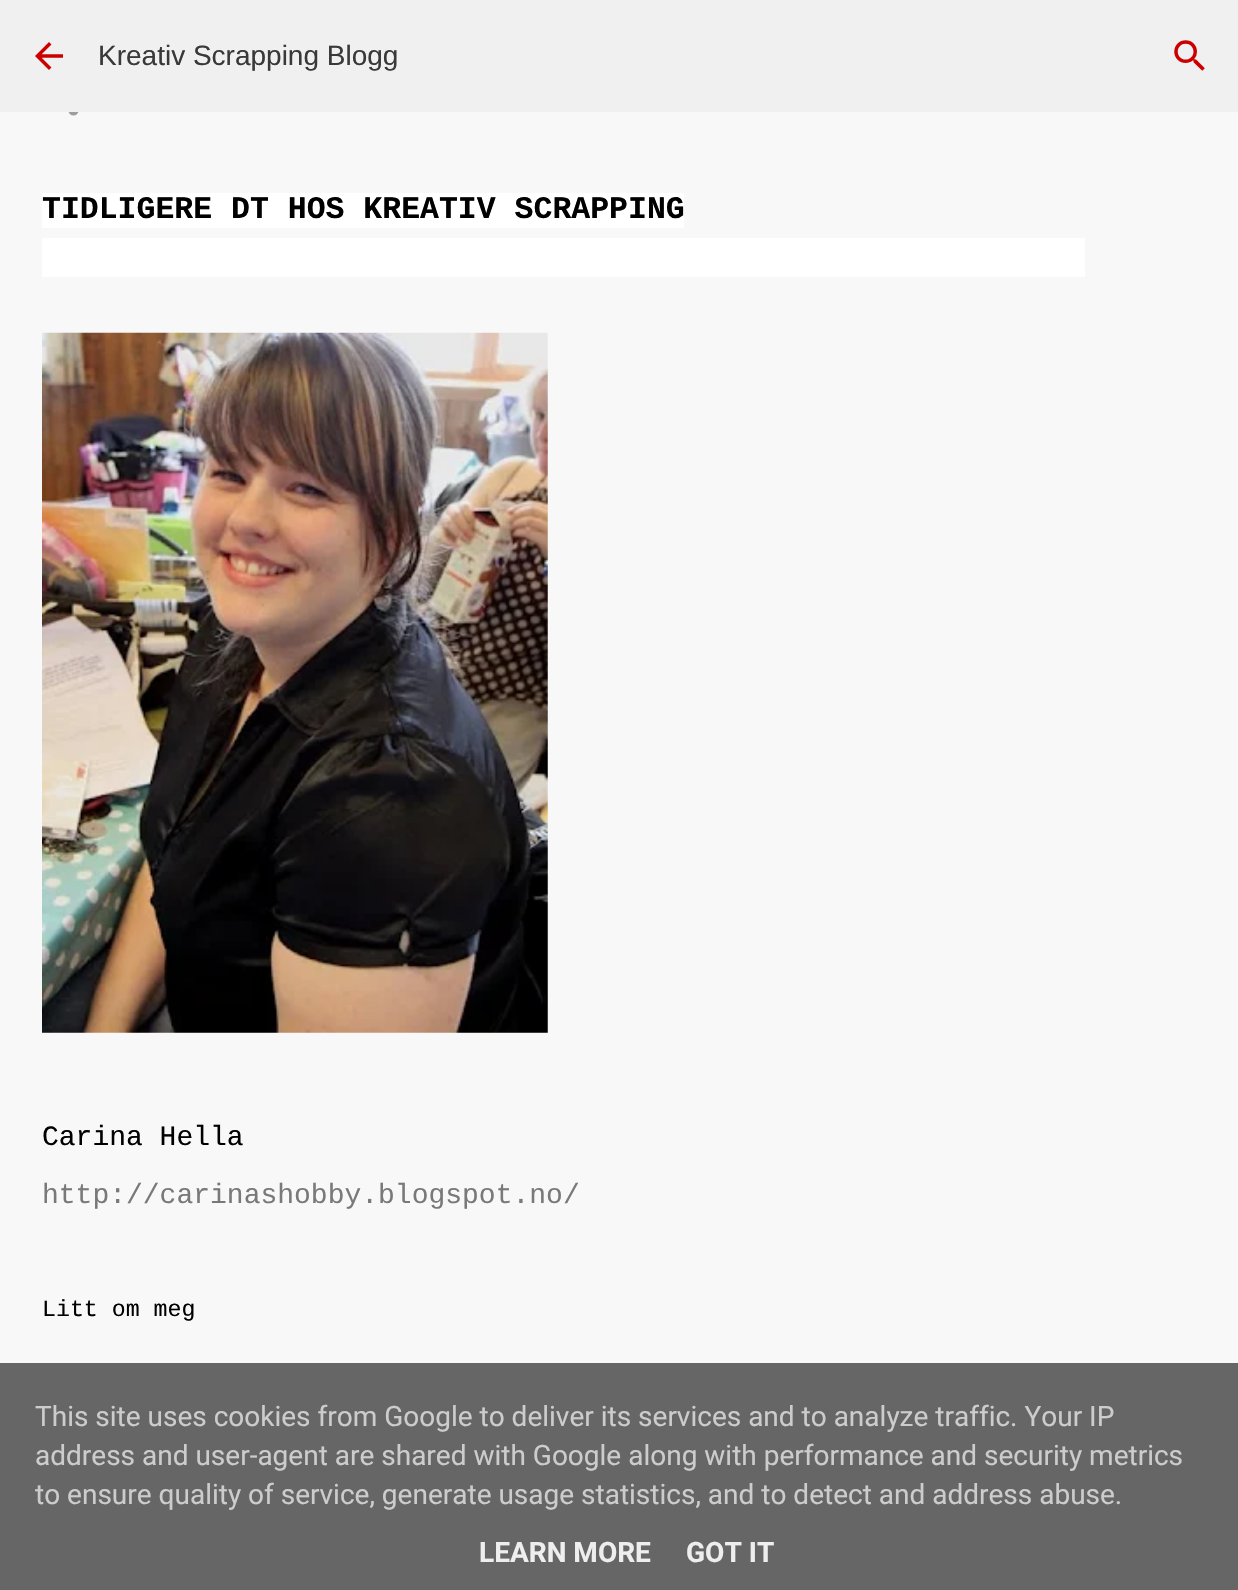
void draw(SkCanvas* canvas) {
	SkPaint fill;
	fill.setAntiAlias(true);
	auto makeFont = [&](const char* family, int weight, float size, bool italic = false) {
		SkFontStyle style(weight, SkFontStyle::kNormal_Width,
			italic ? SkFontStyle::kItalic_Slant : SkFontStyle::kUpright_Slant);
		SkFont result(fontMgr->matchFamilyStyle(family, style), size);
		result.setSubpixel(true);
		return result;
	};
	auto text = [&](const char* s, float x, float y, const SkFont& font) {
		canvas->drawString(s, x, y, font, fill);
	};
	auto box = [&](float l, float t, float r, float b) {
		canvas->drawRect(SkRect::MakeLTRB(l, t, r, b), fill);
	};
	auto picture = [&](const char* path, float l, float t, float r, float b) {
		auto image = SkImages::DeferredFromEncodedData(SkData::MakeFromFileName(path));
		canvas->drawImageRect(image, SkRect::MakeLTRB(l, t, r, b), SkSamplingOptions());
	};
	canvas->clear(0xFFF8F8F8);
	fill.setColor(0xFFF0F0F0);
	box(0, 0, 1238, 112);
	picture("image0.png", 35, 42, 63, 70);
	picture("image1.png", 1174, 40, 1205, 71);
	picture("image2.png", 68, 112, 79, 116);
	fill.setColor(0xFFFFFFFF);
	box(42, 193, 684, 228);
	box(42, 238, 1085, 277);
	picture("image3.png", 42, 332, 548, 1033);
	fill.setColor(0xFF666666);
	box(0, 1363, 1238, 1590);
	auto font1 = makeFont("Liberation Sans", 400, 28);
	fill.setColor(0xFF393939);
	text("Kreativ Scrapping Blogg", 98, 65, font1);
	auto font2 = makeFont("Liberation Mono", 700, 31.5f);
	fill.setColor(0xFF000000);
	text("TIDLIGERE DT HOS KREATIV SCRAPPING", 42, 218, font2);
	auto font3 = makeFont("Liberation Mono", 400, 28);
	text("Carina Hella", 42, 1145, font3);
	fill.setColor(0xFF797979);
	text("http://carinashobby.blogspot.no/", 42, 1203, font3);
	auto font4 = makeFont("Liberation Mono", 400, 23.25f);
	fill.setColor(0xFF000000);
	text("Litt om meg", 42, 1316, font4);
	auto font5 = makeFont("Roboto", 400, 28);
	fill.setColor(0xFFCCCCCC);
	text("This site uses cookies from Google to deliver its services and to analyze traffic. Your IP", 35, 1426, font5);
	text("address and user-agent are shared with Google along with performance and security metrics", 35, 1465, font5);
	text("to ensure quality of service, generate usage statistics, and to detect and address abuse.", 35, 1504, font5);
	auto font6 = makeFont("Roboto", 700, 28);
	fill.setColor(0xFFEEEEEE);
	text("LEARN MORE", 479, 1562, font6);
	text("GOT IT", 686, 1562, font6);
}
